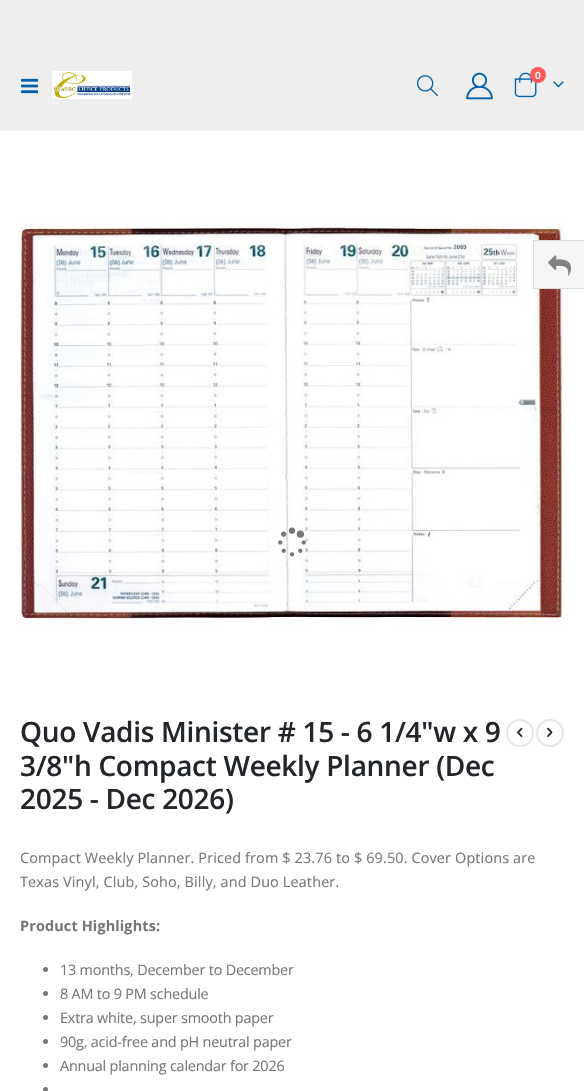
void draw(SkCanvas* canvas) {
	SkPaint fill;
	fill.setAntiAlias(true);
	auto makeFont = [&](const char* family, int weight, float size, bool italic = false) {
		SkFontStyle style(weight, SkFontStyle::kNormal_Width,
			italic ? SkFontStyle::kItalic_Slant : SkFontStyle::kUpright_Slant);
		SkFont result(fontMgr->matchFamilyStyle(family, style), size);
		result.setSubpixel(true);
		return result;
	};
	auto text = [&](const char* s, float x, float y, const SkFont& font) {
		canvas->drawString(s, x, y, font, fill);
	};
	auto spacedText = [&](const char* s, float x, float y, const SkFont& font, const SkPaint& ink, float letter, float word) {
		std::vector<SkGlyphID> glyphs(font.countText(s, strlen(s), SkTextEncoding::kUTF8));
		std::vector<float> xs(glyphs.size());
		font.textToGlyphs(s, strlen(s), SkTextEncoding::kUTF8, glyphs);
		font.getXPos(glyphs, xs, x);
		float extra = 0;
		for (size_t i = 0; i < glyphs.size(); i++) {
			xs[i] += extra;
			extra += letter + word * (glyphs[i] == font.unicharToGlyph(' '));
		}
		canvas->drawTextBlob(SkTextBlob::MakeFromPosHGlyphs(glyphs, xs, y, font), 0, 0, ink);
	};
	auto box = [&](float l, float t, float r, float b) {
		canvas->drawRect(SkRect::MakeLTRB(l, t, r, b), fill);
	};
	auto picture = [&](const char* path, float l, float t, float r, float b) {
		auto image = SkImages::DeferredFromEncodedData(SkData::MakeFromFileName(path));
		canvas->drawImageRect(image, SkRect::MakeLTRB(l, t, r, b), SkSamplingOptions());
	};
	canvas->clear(0xFFFFFFFF);
	fill.setColor(0xFFEEEEEE);
	box(0, 0, 584, 130);
	fill.setColor(0xFFF4F4F4);
	box(0, 130, 584, 131);
	picture("image0.png", 21, 78, 38, 94);
	picture("image1.png", 52, 71, 132, 99);
	picture("image2.png", 416, 75, 438, 97);
	picture("image3.png", 466, 72, 493, 100);
	picture("image4.png", 514, 72, 537, 98);
	fill.setColor(0xFFFF5B5B);
	canvas->drawCircle(538, 75, 8, fill);
	picture("image5.png", 553, 81, 564, 88);
	picture("image7.png", 20, 223, 564, 630);
	fill.setColor(0xFFF5F5F5);
	box(534, 241, 584, 288);
	fill.setColor(0xFFDCDCDA);
	box(533, 240, 584, 241);
	box(533, 288, 584, 289);
	box(533, 240, 534, 289);
	picture("image6.png", 548, 255, 571, 276);
	picture("image8.png", 278, 527, 306, 557);
	fill.setStyle(SkPaint::kStroke_Style);
	fill.setStrokeWidth(2);
	fill.setColor(0xFFE7E7E7);
	canvas->drawCircle(520, 733, 13, fill);
	picture("image9.png", 517, 727, 523, 737);
	canvas->drawCircle(550, 733, 13, fill);
	picture("image10.png", 547, 727, 553, 737);
	fill.setStyle(SkPaint::kFill_Style);
	fill.setColor(0xFF777777);
	canvas->drawCircle(45.5f, 969.5f, 2.5f, fill);
	canvas->drawCircle(45.5f, 993.5f, 2.5f, fill);
	canvas->drawCircle(45.5f, 1017.5f, 2.5f, fill);
	canvas->drawCircle(45.5f, 1041.5f, 2.5f, fill);
	canvas->drawCircle(45.5f, 1065.5f, 2.5f, fill);
	canvas->drawCircle(45.5f, 1089.5f, 2.5f, fill);
	auto font1 = makeFont("Open Sans", 600, 10);
	fill.setColor(0xFFFFFFFF);
	text("0", 535, 79, font1);
	auto font2 = makeFont("Open Sans", 600, 28);
	fill.setColor(0xFF222529);
	spacedText("Quo Vadis Minister # 15 - 6 1/4\"w x 9", 20, 742, font2, fill, -0.3f, 0);
	spacedText("3/8\"h Compact Weekly Planner (Dec", 20, 776, font2, fill, -0.3f, 0);
	spacedText("2025 - Dec 2026)", 20, 809, font2, fill, -0.3f, 0);
	auto font3 = makeFont("Open Sans", 400, 14.4f);
	fill.setColor(0xFF777777);
	spacedText("Compact Weekly Planner. Priced from $ 23.76 to $ 69.50. Cover Options are", 20, 863, font3, fill, 0.15f, 0);
	spacedText("Texas Vinyl, Club, Soho, Billy, and Duo Leather.", 20, 887, font3, fill, 0.15f, 0);
	auto font4 = makeFont("Open Sans", 700, 14.4f);
	spacedText("Product Highlights:", 20, 931, font4, fill, 0.15f, 0);
	spacedText("13 months, December to December", 60, 975, font3, fill, -0.2f, 0);
	spacedText("8 AM to 9 PM schedule", 60, 999, font3, fill, -0.2f, 0);
	spacedText("Extra white, super smooth paper", 60, 1023, font3, fill, -0.2f, 0);
	spacedText("90g, acid-free and pH neutral paper", 60, 1047, font3, fill, -0.2f, 0);
	spacedText("Annual planning calendar for 2026", 60, 1071, font3, fill, -0.2f, 0);
}
